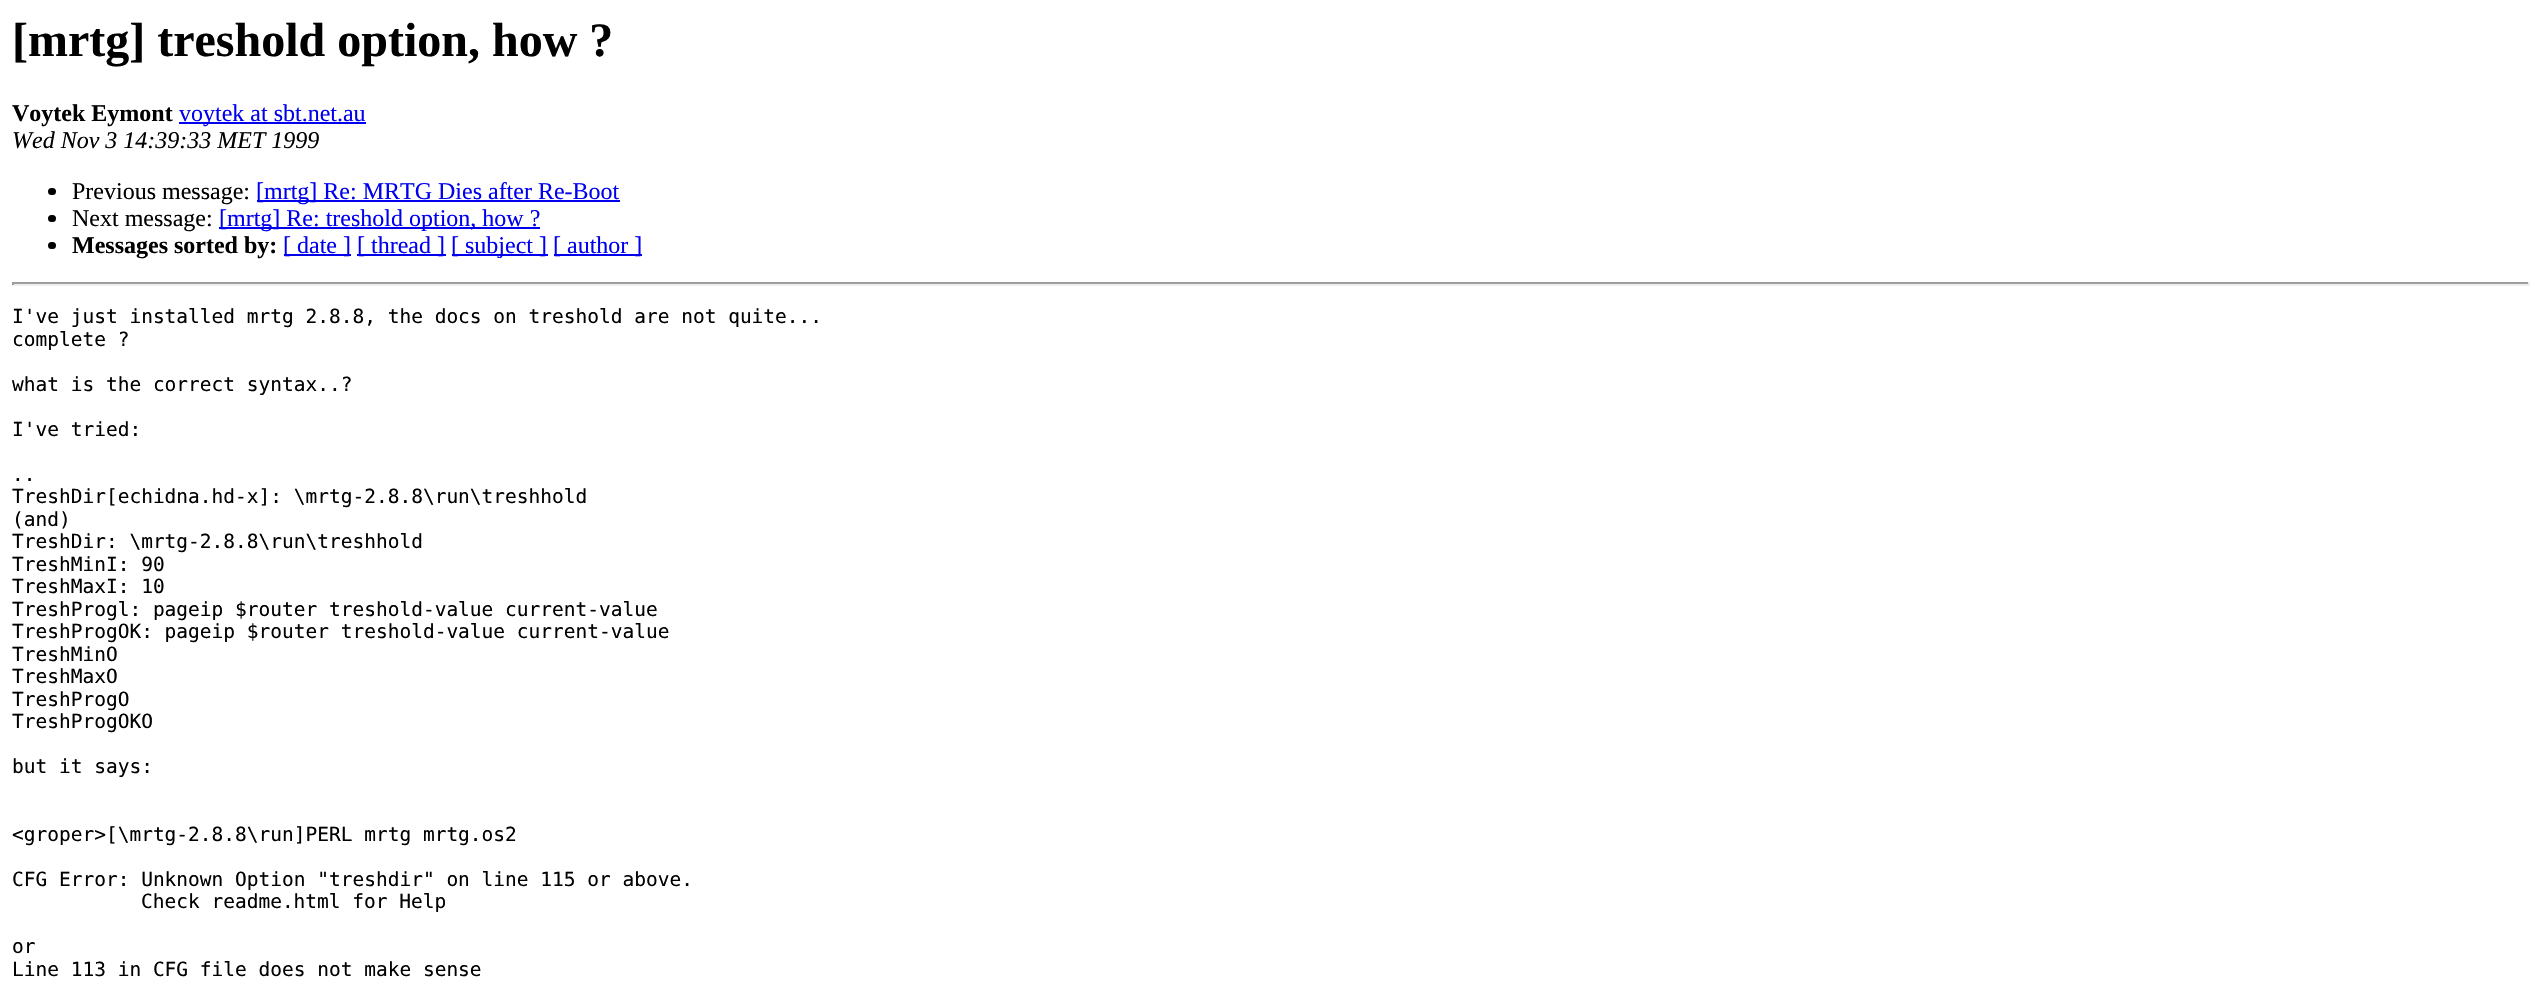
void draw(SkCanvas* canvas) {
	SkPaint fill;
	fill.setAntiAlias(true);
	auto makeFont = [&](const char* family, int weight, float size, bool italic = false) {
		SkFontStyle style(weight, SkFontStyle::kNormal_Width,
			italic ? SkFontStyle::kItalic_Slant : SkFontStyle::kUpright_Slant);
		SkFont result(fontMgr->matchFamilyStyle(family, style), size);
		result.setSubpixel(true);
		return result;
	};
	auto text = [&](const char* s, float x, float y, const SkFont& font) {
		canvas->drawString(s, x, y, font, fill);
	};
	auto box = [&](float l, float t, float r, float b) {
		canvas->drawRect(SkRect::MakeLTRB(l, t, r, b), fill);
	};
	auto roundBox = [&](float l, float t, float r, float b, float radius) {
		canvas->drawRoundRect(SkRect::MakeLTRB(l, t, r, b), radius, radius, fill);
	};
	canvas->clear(0xFFFFFFFF);
	fill.setColor(0xFF0000EE);
	box(179, 122, 366, 124);
	fill.setColor(0xFF000000);
	roundBox(48, 188, 56, 195, 3.5f);
	fill.setColor(0xFF0000EE);
	box(257, 200, 620, 202);
	fill.setColor(0xFF000000);
	roundBox(48, 215, 56, 222, 3.5f);
	fill.setColor(0xFF0000EE);
	box(219, 227, 540, 229);
	fill.setColor(0xFF000000);
	roundBox(48, 242, 56, 249, 3.5f);
	fill.setColor(0xFF0000EE);
	box(284, 254, 351, 256);
	box(357, 254, 446, 256);
	box(452, 254, 548, 256);
	box(554, 254, 642, 256);
	fill.setColor(0xFF9F9F9F);
	box(12, 282, 2529, 284);
	fill.setColor(0xFFEEEEEE);
	box(2528, 282, 2530, 285);
	box(12, 284, 2529, 286);
	fill.setColor(0xFF9F9F9F);
	box(12, 282, 14, 285);
	auto font1 = makeFont("Liberation Serif", 700, 48);
	fill.setColor(0xFF000000);
	text("[mrtg] treshold option, how ?", 12, 56, font1);
	auto font2 = makeFont("Liberation Serif", 700, 24);
	text("Voytek Eymont", 12, 121, font2);
	auto font3 = makeFont("Liberation Serif", 400, 24);
	fill.setColor(0xFF0000EE);
	text("voytek at sbt.net.au", 179, 121, font3);
	auto font4 = makeFont("Liberation Serif", 400, 24, true);
	fill.setColor(0xFF000000);
	text("Wed Nov 3 14:39:33 MET 1999", 12, 148, font4);
	text("Previous message:", 72, 199, font3);
	fill.setColor(0xFF0000EE);
	text("[mrtg] Re: MRTG Dies after Re-Boot", 256, 199, font3);
	fill.setColor(0xFF000000);
	text("Next message:", 72, 226, font3);
	fill.setColor(0xFF0000EE);
	text("[mrtg] Re: treshold option, how ?", 219, 226, font3);
	fill.setColor(0xFF000000);
	text("Messages sorted by:", 72, 253, font2);
	fill.setColor(0xFF0000EE);
	text("[ date ]", 283, 253, font3);
	text("[ thread ]", 357, 253, font3);
	text("[ subject ]", 451, 253, font3);
	text("[ author ]", 553, 253, font3);
	auto font5 = makeFont("DejaVu Sans Mono", 400, 19.5f);
	fill.setColor(0xFF000000);
	text("I've just installed mrtg 2.8.8, the docs on treshold are not quite...", 12, 323, font5);
	text("complete ?", 12, 346, font5);
	text("what is the correct syntax..?", 12, 391, font5);
	text("I've tried:", 12, 436, font5);
	text("..", 12, 481, font5);
	text("TreshDir[echidna.hd-x]: \\mrtg-2.8.8\\run\\treshhold", 12, 503, font5);
	text("(and)", 12, 526, font5);
	text("TreshDir: \\mrtg-2.8.8\\run\\treshhold", 12, 548, font5);
	text("TreshMinI: 90", 12, 571, font5);
	text("TreshMaxI: 10", 12, 593, font5);
	text("TreshProgl: pageip $router treshold-value current-value", 12, 616, font5);
	text("TreshProgOK: pageip $router treshold-value current-value", 12, 638, font5);
	text("TreshMinO", 12, 661, font5);
	text("TreshMaxO", 12, 683, font5);
	text("TreshProgO", 12, 706, font5);
	text("TreshProgOKO", 12, 728, font5);
	text("but it says:", 12, 773, font5);
	text("<groper>[\\mrtg-2.8.8\\run]PERL mrtg mrtg.os2", 12, 841, font5);
	text("CFG Error: Unknown Option \"treshdir\" on line 115 or above.", 12, 886, font5);
	text("Check readme.html for Help", 141, 908, font5);
	text("or", 12, 953, font5);
	text("Line 113 in CFG file does not make sense", 12, 976, font5);
}
